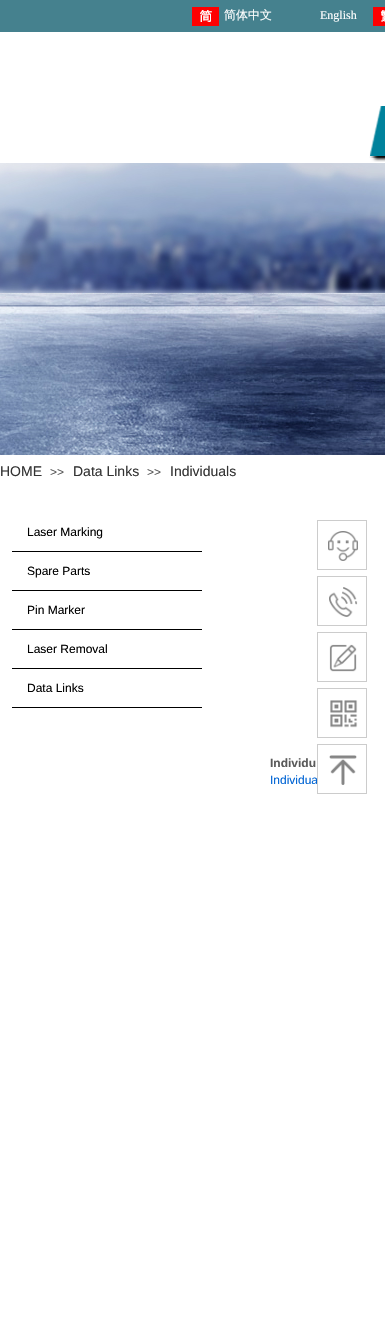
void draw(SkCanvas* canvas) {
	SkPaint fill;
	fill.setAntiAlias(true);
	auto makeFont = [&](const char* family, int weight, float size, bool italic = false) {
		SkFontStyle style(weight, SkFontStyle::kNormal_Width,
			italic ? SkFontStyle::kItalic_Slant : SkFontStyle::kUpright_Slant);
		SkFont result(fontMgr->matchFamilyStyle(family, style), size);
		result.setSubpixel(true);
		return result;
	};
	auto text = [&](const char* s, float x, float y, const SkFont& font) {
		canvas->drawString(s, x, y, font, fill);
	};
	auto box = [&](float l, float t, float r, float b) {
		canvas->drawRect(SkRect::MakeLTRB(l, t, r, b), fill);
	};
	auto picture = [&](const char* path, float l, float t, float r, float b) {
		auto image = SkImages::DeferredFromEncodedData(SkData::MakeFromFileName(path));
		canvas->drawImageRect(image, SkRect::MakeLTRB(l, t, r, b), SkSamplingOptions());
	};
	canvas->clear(0xFFFFFFFF);
	fill.setColor(0xFF45818E);
	box(0, 0, 385, 32);
	picture("image0.png", 192, 7, 219, 26);
	picture("image1.png", 373, 7, 385, 26);
	picture("image2.png", 369, 106, 385, 162);
	picture("image3.png", 0, 163, 385, 455);
	fill.setColor(0xFF000000);
	box(12, 551, 202, 552);
	box(12, 590, 202, 591);
	box(12, 629, 202, 630);
	box(12, 668, 202, 669);
	box(12, 707, 202, 708);
	fill.setStyle(SkPaint::kStroke_Style);
	fill.setStrokeWidth(1);
	fill.setColor(0xFFCCCCCC);
	canvas->drawRect(SkRect::MakeLTRB(317.5f, 520.5f, 366.5f, 569.5f), fill);
	picture("image4.png", 328, 531, 358, 561);
	canvas->drawRect(SkRect::MakeLTRB(317.5f, 576.5f, 366.5f, 625.5f), fill);
	picture("image5.png", 329, 587, 358, 617);
	canvas->drawRect(SkRect::MakeLTRB(317.5f, 632.5f, 366.5f, 681.5f), fill);
	picture("image6.png", 329, 644, 357, 672);
	canvas->drawRect(SkRect::MakeLTRB(317.5f, 688.5f, 366.5f, 737.5f), fill);
	picture("image7.png", 330, 700, 358, 728);
	auto font1 = makeFont("WenQuanYi Zen Hei", 500, 12);
	fill.setStyle(SkPaint::kFill_Style);
	fill.setColor(0xFFFFFFFF);
	text("简体中文", 224, 19, font1);
	auto font2 = makeFont("Liberation Serif", 400, 12);
	text("English", 320, 19, font2);
	auto font3 = makeFont("Liberation Sans", 400, 14);
	fill.setColor(0xFF333333);
	text("HOME", 0, 476, font3);
	auto font4 = makeFont("Liberation Sans", 400, 12);
	fill.setColor(0xFF5A5A5A);
	text(">>", 50, 476, font4);
	fill.setColor(0xFF333333);
	text("Data Links", 73, 476, font3);
	fill.setColor(0xFF5A5A5A);
	text(">>", 147, 476, font4);
	fill.setColor(0xFF333333);
	text("Individuals", 170, 476, font3);
	fill.setColor(0xFF000000);
	text("Laser Marking", 27, 536, font4);
	text("Spare Parts", 27, 575, font4);
	text("Pin Marker", 27, 614, font4);
	text("Laser Removal", 27, 653, font4);
	text("Data Links", 27, 692, font4);
	auto font5 = makeFont("Liberation Sans", 700, 12);
	fill.setColor(0xFF5A5A5A);
	text("Individu", 270, 767, font5);
	fill.setColor(0xFF0064D4);
	text("Individua", 270, 784, font4);
	fill.setColor(0xFFFFFFFF);
	box(318, 783, 319, 784);
	fill.setStyle(SkPaint::kStroke_Style);
	fill.setColor(0xFFCCCCCC);
	canvas->drawRect(SkRect::MakeLTRB(317.5f, 744.5f, 366.5f, 793.5f), fill);
	picture("image8.png", 329, 755, 357, 785);
}
